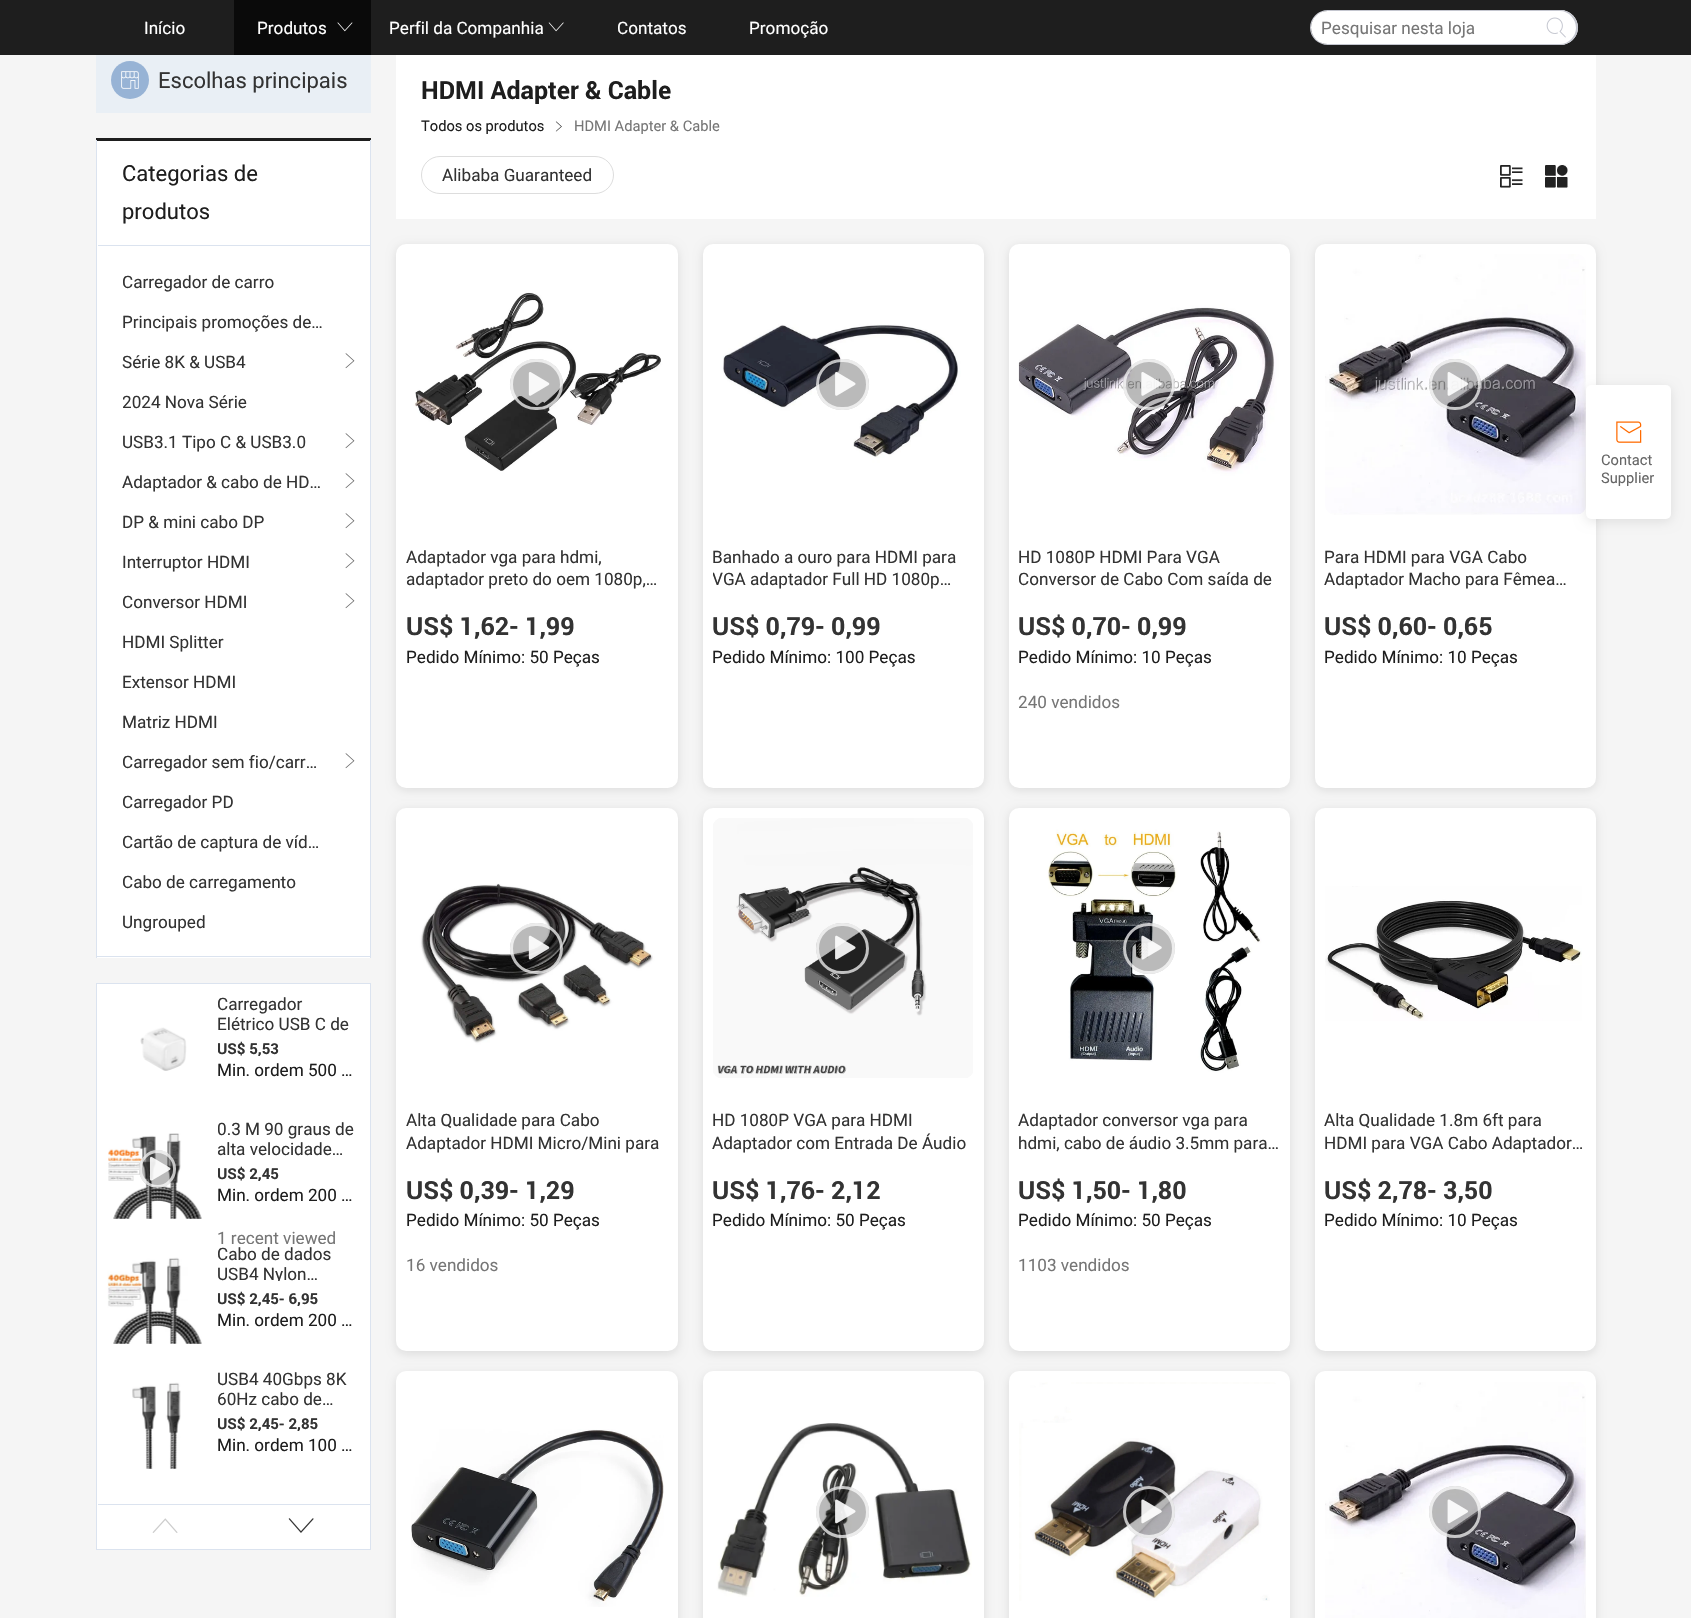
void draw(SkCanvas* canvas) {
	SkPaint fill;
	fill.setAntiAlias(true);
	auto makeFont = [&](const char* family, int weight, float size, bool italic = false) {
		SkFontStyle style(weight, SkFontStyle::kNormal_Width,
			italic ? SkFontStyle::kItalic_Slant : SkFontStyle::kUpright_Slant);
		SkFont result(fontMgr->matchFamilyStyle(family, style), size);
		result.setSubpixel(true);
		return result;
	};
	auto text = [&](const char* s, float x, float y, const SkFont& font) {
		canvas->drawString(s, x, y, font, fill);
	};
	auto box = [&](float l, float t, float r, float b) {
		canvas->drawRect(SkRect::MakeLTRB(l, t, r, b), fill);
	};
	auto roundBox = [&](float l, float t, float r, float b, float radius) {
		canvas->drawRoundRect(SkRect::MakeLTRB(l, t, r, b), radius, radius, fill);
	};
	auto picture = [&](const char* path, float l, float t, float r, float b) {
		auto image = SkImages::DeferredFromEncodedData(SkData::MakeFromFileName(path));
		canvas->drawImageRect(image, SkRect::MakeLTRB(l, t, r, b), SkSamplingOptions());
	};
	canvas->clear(0xFFF5F5F5);
	fill.setColor(0xFF1E1E1E);
	box(0, 0, 1691, 55);
	fill.setColor(0xFF0A0A0A);
	box(234, 0, 371, 55);
	picture("image0.png", 337, 22, 353, 32);
	picture("image1.png", 548, 22, 564, 32);
	fill.setColor(0xFFC4C6CF);
	canvas->drawPath(SkPathBuilder(SkPathFillType::kEvenOdd).moveTo(1328, 10).lineTo(1536, 10).lineTo(1536, 45).lineTo(1328, 45).cubicTo(1318, 45, 1310, 37, 1310, 28).cubicTo(1310, 18, 1318, 10, 1328, 10).close().moveTo(1328, 11).lineTo(1536, 11).lineTo(1536, 44).lineTo(1328, 44).cubicTo(1319, 44, 1311, 36, 1311, 28).cubicTo(1311, 19, 1319, 11, 1328, 11).close().detach(), fill);
	fill.setColor(0xFFFFFFFF);
	canvas->drawPath(SkPathBuilder().moveTo(1327.5f, 11).lineTo(1535.5f, 11).cubicTo(1536, 11, 1536, 11, 1536, 11.5f).lineTo(1536, 43.5f).cubicTo(1536, 44, 1536, 44, 1535.5f, 44).lineTo(1327.5f, 44).cubicTo(1318.5f, 44, 1311, 36.5f, 1311, 27.5f).cubicTo(1311, 18.5f, 1318.5f, 11, 1327.5f, 11).close().detach(), fill);
	canvas->drawPath(SkPathBuilder().moveTo(1536, 10).lineTo(1560.5f, 10).cubicTo(1570, 10, 1578, 18, 1578, 27.5f).cubicTo(1578, 37, 1570, 45, 1560.5f, 45).lineTo(1536, 45).close().detach(), fill);
	fill.setColor(0xFFC4C6CF);
	canvas->drawPath(SkPathBuilder(SkPathFillType::kEvenOdd).moveTo(1536, 10).lineTo(1560, 10).cubicTo(1570, 10, 1578, 18, 1578, 28).cubicTo(1578, 37, 1570, 45, 1560, 45).lineTo(1536, 45).close().moveTo(1536, 11).lineTo(1560, 11).cubicTo(1569, 11, 1576, 19, 1576, 28).cubicTo(1576, 36, 1569, 44, 1560, 44).lineTo(1536, 44).close().detach(), fill);
	picture("image2.png", 1546, 17, 1566, 38);
	fill.setColor(0xFFE9EFF5);
	box(96, 55, 371, 113);
	fill.setColor(0xFF97B3D5);
	canvas->drawCircle(130, 80, 19, fill);
	picture("image3.png", 121, 71, 139, 89);
	fill.setColor(0xFFFFFFFF);
	box(97, 141, 370, 958);
	fill.setColor(0xFF1E1E1E);
	box(96, 138, 371, 141);
	fill.setColor(0xFFDBE3EF);
	box(370, 140, 371, 958);
	box(96, 956, 371, 957);
	box(96, 140, 97, 958);
	box(98, 245, 370, 246);
	picture("image4.png", 345, 353, 355, 369);
	picture("image4.png", 345, 433, 355, 449);
	picture("image4.png", 345, 473, 355, 489);
	picture("image4.png", 345, 513, 355, 529);
	picture("image4.png", 345, 553, 355, 569);
	picture("image4.png", 345, 593, 355, 609);
	picture("image4.png", 345, 753, 355, 769);
	fill.setColor(0xFFFFFFFF);
	canvas->drawRect(SkRect::MakeLTRB(96.5f, 983.5f, 370.5f, 1549.5f), fill);
	fill.setStyle(SkPaint::kStroke_Style);
	fill.setStrokeWidth(1);
	fill.setColor(0xFFDBE3EF);
	canvas->drawRect(SkRect::MakeLTRB(96.5f, 983.5f, 370.5f, 1549.5f), fill);
	picture("image5.png", 140, 1027, 187, 1071);
	picture("image6.png", 108, 1133, 202, 1219);
	fill.setStyle(SkPaint::kFill_Style);
	fill.setColor(0x45000000);
	roundBox(139, 1150, 176, 1188, 18.5f);
	fill.setStyle(SkPaint::kStroke_Style);
	fill.setStrokeWidth(3);
	fill.setColor(0xB8FFFFFF);
	canvas->drawRoundRect(SkRect::MakeLTRB(140.5f, 1151.5f, 174.5f, 1186.5f), 17, 17, fill);
	picture("image7.png", 149, 1156, 171, 1181);
	picture("image8.png", 107, 1257, 202, 1344);
	picture("image9.png", 132, 1382, 181, 1469);
	fill.setStyle(SkPaint::kFill_Style);
	fill.setColor(0xFFDBE3EF);
	box(98, 1504, 370, 1505);
	picture("image10.png", 152, 1518, 178, 1533);
	picture("image11.png", 288, 1518, 314, 1533);
	fill.setColor(0xFFFFFFFF);
	box(396, 55, 1596, 219);
	picture("image12.png", 555, 121, 562, 132);
	fill.setStyle(SkPaint::kStroke_Style);
	fill.setStrokeWidth(1);
	fill.setColor(0xFFDDDDDD);
	canvas->drawRoundRect(SkRect::MakeLTRB(421.5f, 156.5f, 613.5f, 193.5f), 18.5f, 18.5f, fill);
	picture("image13.png", 1500, 165, 1523, 188);
	picture("image14.png", 1545, 164, 1569, 188);
	fill.setStyle(SkPaint::kFill_Style);
	fill.setColor(0x1A000000);
	fill.setMaskFilter(SkMaskFilter::MakeBlur(kNormal_SkBlurStyle, 5));
	canvas->drawRoundRect(SkRect::MakeLTRB(396, 246, 678, 790), 10, 10, fill);
	fill.setMaskFilter(nullptr);
	fill.setColor(0xFFFFFFFF);
	roundBox(396, 244, 678, 788, 10);
	picture("image15.png", 407, 254, 665, 515);
	fill.setColor(0x45000000);
	roundBox(510, 359, 563, 410, 25.5f);
	fill.setStyle(SkPaint::kStroke_Style);
	fill.setStrokeWidth(3);
	fill.setColor(0xB8FFFFFF);
	canvas->drawRoundRect(SkRect::MakeLTRB(511.5f, 360.5f, 561.5f, 408.5f), 24, 24, fill);
	picture("image16.png", 528, 372, 550, 396);
	fill.setStyle(SkPaint::kFill_Style);
	fill.setColor(0x1A000000);
	fill.setMaskFilter(SkMaskFilter::MakeBlur(kNormal_SkBlurStyle, 5));
	canvas->drawRoundRect(SkRect::MakeLTRB(703, 246, 984, 790), 10, 10, fill);
	fill.setMaskFilter(nullptr);
	fill.setColor(0xFFFFFFFF);
	roundBox(703, 244, 984, 788, 10);
	picture("image17.png", 713, 254, 973, 515);
	fill.setColor(0x45000000);
	roundBox(816, 359, 869, 410, 25.5f);
	fill.setStyle(SkPaint::kStroke_Style);
	fill.setColor(0xB8FFFFFF);
	canvas->drawRoundRect(SkRect::MakeLTRB(817.5f, 360.5f, 867.5f, 408.5f), 24, 24, fill);
	picture("image18.png", 835, 372, 856, 396);
	fill.setStyle(SkPaint::kFill_Style);
	fill.setColor(0x1A000000);
	fill.setMaskFilter(SkMaskFilter::MakeBlur(kNormal_SkBlurStyle, 5));
	canvas->drawRoundRect(SkRect::MakeLTRB(1009, 246, 1290, 790), 10, 10, fill);
	fill.setMaskFilter(nullptr);
	fill.setColor(0xFFFFFFFF);
	roundBox(1009, 244, 1290, 788, 10);
	picture("image19.png", 1018, 254, 1280, 515);
	fill.setColor(0x45000000);
	roundBox(1123, 359, 1175, 410, 25.5f);
	fill.setStyle(SkPaint::kStroke_Style);
	fill.setColor(0xB8FFFFFF);
	canvas->drawRoundRect(SkRect::MakeLTRB(1124.5f, 360.5f, 1173.5f, 408.5f), 24, 24, fill);
	picture("image20.png", 1141, 372, 1162, 396);
	fill.setStyle(SkPaint::kFill_Style);
	fill.setColor(0x1A000000);
	fill.setMaskFilter(SkMaskFilter::MakeBlur(kNormal_SkBlurStyle, 5));
	canvas->drawRoundRect(SkRect::MakeLTRB(1315, 246, 1596, 790), 10, 10, fill);
	fill.setMaskFilter(nullptr);
	fill.setColor(0xFFFFFFFF);
	roundBox(1315, 244, 1596, 788, 10);
	picture("image21.png", 1325, 254, 1586, 515);
	fill.setColor(0x45000000);
	roundBox(1429, 359, 1481, 410, 25.5f);
	fill.setStyle(SkPaint::kStroke_Style);
	fill.setColor(0xB8FFFFFF);
	canvas->drawRoundRect(SkRect::MakeLTRB(1430.5f, 360.5f, 1479.5f, 408.5f), 24, 24, fill);
	picture("image22.png", 1447, 372, 1468, 396);
	fill.setStyle(SkPaint::kFill_Style);
	fill.setColor(0x1A000000);
	fill.setMaskFilter(SkMaskFilter::MakeBlur(kNormal_SkBlurStyle, 5));
	canvas->drawRoundRect(SkRect::MakeLTRB(396, 810, 678, 1354), 10, 10, fill);
	fill.setMaskFilter(nullptr);
	fill.setColor(0xFFFFFFFF);
	roundBox(396, 808, 678, 1351, 10);
	picture("image23.png", 406, 818, 667, 1074);
	fill.setColor(0x45000000);
	roundBox(510, 923, 563, 974, 25.5f);
	fill.setStyle(SkPaint::kStroke_Style);
	fill.setColor(0xB8FFFFFF);
	canvas->drawRoundRect(SkRect::MakeLTRB(511.5f, 924.5f, 561.5f, 972.5f), 24, 24, fill);
	picture("image24.png", 528, 935, 550, 960);
	fill.setStyle(SkPaint::kFill_Style);
	fill.setColor(0x1A000000);
	fill.setMaskFilter(SkMaskFilter::MakeBlur(kNormal_SkBlurStyle, 5));
	canvas->drawRoundRect(SkRect::MakeLTRB(703, 810, 984, 1354), 10, 10, fill);
	fill.setMaskFilter(nullptr);
	fill.setColor(0xFFFFFFFF);
	roundBox(703, 808, 984, 1351, 10);
	picture("image25.png", 713, 818, 973, 1078);
	fill.setColor(0x45000000);
	roundBox(816, 923, 869, 974, 25.5f);
	fill.setStyle(SkPaint::kStroke_Style);
	fill.setColor(0xB8FFFFFF);
	canvas->drawRoundRect(SkRect::MakeLTRB(817.5f, 924.5f, 867.5f, 972.5f), 24, 24, fill);
	picture("image26.png", 835, 935, 856, 960);
	fill.setStyle(SkPaint::kFill_Style);
	fill.setColor(0x1A000000);
	fill.setMaskFilter(SkMaskFilter::MakeBlur(kNormal_SkBlurStyle, 5));
	canvas->drawRoundRect(SkRect::MakeLTRB(1009, 810, 1290, 1354), 10, 10, fill);
	fill.setMaskFilter(nullptr);
	fill.setColor(0xFFFFFFFF);
	roundBox(1009, 808, 1290, 1351, 10);
	picture("image27.png", 1019, 818, 1280, 1078);
	fill.setColor(0x45000000);
	roundBox(1123, 923, 1175, 974, 25.5f);
	fill.setStyle(SkPaint::kStroke_Style);
	fill.setColor(0xB8FFFFFF);
	canvas->drawRoundRect(SkRect::MakeLTRB(1124.5f, 924.5f, 1173.5f, 972.5f), 24, 24, fill);
	picture("image28.png", 1141, 935, 1162, 960);
	fill.setStyle(SkPaint::kFill_Style);
	fill.setColor(0x1A000000);
	fill.setMaskFilter(SkMaskFilter::MakeBlur(kNormal_SkBlurStyle, 5));
	canvas->drawRoundRect(SkRect::MakeLTRB(1315, 810, 1596, 1354), 10, 10, fill);
	fill.setMaskFilter(nullptr);
	fill.setColor(0xFFFFFFFF);
	roundBox(1315, 808, 1596, 1351, 10);
	picture("image29.png", 1325, 886, 1582, 1021);
	fill.setColor(0x1A000000);
	fill.setMaskFilter(SkMaskFilter::MakeBlur(kNormal_SkBlurStyle, 5));
	canvas->drawRoundRect(SkRect::MakeLTRB(396, 1374, 678, 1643), 10, 10, fill);
	fill.setMaskFilter(nullptr);
	fill.setColor(0xFFFFFFFF);
	roundBox(396, 1371, 678, 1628, 10);
	picture("image30.png", 411, 1429, 664, 1607);
	fill.setColor(0x1A000000);
	fill.setMaskFilter(SkMaskFilter::MakeBlur(kNormal_SkBlurStyle, 5));
	canvas->drawRoundRect(SkRect::MakeLTRB(703, 1374, 984, 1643), 10, 10, fill);
	fill.setMaskFilter(nullptr);
	fill.setColor(0xFFFFFFFF);
	roundBox(703, 1371, 984, 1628, 10);
	picture("image31.png", 713, 1382, 972, 1597);
	fill.setColor(0x45000000);
	roundBox(816, 1486, 869, 1538, 26);
	fill.setStyle(SkPaint::kStroke_Style);
	fill.setColor(0xB8FFFFFF);
	canvas->drawRoundRect(SkRect::MakeLTRB(817.5f, 1487.5f, 867.5f, 1536.5f), 24.5f, 24.5f, fill);
	picture("image32.png", 835, 1499, 856, 1524);
	fill.setStyle(SkPaint::kFill_Style);
	fill.setColor(0x1A000000);
	fill.setMaskFilter(SkMaskFilter::MakeBlur(kNormal_SkBlurStyle, 5));
	canvas->drawRoundRect(SkRect::MakeLTRB(1009, 1374, 1290, 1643), 10, 10, fill);
	fill.setMaskFilter(nullptr);
	fill.setColor(0xFFFFFFFF);
	roundBox(1009, 1371, 1290, 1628, 10);
	picture("image33.png", 1019, 1382, 1280, 1601);
	fill.setColor(0x45000000);
	canvas->drawCircle(1149, 1512, 26, fill);
	fill.setStyle(SkPaint::kStroke_Style);
	fill.setColor(0xB8FFFFFF);
	canvas->drawCircle(1149, 1512, 24.5f, fill);
	picture("image34.png", 1141, 1499, 1162, 1524);
	fill.setStyle(SkPaint::kFill_Style);
	fill.setColor(0x1A000000);
	fill.setMaskFilter(SkMaskFilter::MakeBlur(kNormal_SkBlurStyle, 5));
	canvas->drawRoundRect(SkRect::MakeLTRB(1315, 1374, 1596, 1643), 10, 10, fill);
	fill.setMaskFilter(nullptr);
	fill.setColor(0xFFFFFFFF);
	roundBox(1315, 1371, 1596, 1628, 10);
	picture("image35.png", 1325, 1382, 1586, 1618);
	fill.setColor(0x45000000);
	canvas->drawCircle(1455, 1512, 26, fill);
	fill.setStyle(SkPaint::kStroke_Style);
	fill.setColor(0xB8FFFFFF);
	canvas->drawCircle(1455, 1512, 24.5f, fill);
	picture("image36.png", 1447, 1499, 1468, 1524);
	fill.setStyle(SkPaint::kFill_Style);
	fill.setColor(0x1A000000);
	fill.setMaskFilter(SkMaskFilter::MakeBlur(kNormal_SkBlurStyle, 6));
	canvas->drawRoundRect(SkRect::MakeLTRB(1586, 388, 1671, 521), 5, 5, fill);
	fill.setMaskFilter(nullptr);
	fill.setColor(0xFFFFFFFF);
	roundBox(1586, 385, 1671, 519, 5);
	picture("image37.png", 1616, 421, 1642, 443);
	auto font1 = makeFont("Roboto", 400, 17.5f);
	text("Início", 144, 34, font1);
	text("Produtos", 257, 34, font1);
	text("Perfil da Companhia", 389, 34, font1);
	text("Contatos", 617, 34, font1);
	text("Promoção", 749, 34, font1);
	fill.setColor(0xFF767676);
	text("Pesquisar nesta loja", 1321, 34, font1);
	auto font2 = makeFont("Roboto", 400, 22.5f);
	fill.setColor(0xFF333333);
	text("Escolhas principais", 158, 88, font2);
	fill.setColor(0xFF1E1E1E);
	text("Categorias de", 122, 181, font2);
	text("produtos", 122, 219, font2);
	fill.setColor(0xFF333333);
	text("Carregador de carro", 122, 288, font1);
	text("Principais promoções de…", 122, 328, font1);
	text("Série 8K & USB4", 122, 368, font1);
	canvas->save();
	canvas->clipRect(SkRect::MakeLTRB(123, 381, 345, 421));
	text("2024 Nova Série", 122, 408, font1);
	canvas->restore();
	text("USB3.1 Tipo C & USB3.0", 122, 448, font1);
	text("Adaptador & cabo de HD…", 122, 488, font1);
	text("DP & mini cabo DP", 122, 528, font1);
	text("Interruptor HDMI", 122, 568, font1);
	text("Conversor HDMI", 122, 608, font1);
	text("HDMI Splitter", 122, 648, font1);
	text("Extensor HDMI", 122, 688, font1);
	text("Matriz HDMI", 122, 728, font1);
	text("Carregador sem fio/carr…", 122, 768, font1);
	text("Carregador PD", 122, 808, font1);
	text("Cartão de captura de víd…", 122, 848, font1);
	text("Cabo de carregamento", 122, 888, font1);
	text("Ungrouped", 122, 928, font1);
	text("Carregador", 217, 1010, font1);
	text("Elétrico USB C de", 217, 1030, font1);
	canvas->save();
	canvas->clipRect(SkRect::MakeLTRB(218, 1039, 360, 1056));
	auto font3 = makeFont("Roboto", 700, 15);
	text("US$ 5,53", 217, 1054, font3);
	canvas->restore();
	fill.setColor(0xFF1E1E1E);
	text("Min. ordem 500 …", 217, 1076, font1);
	canvas->save();
	canvas->clipRect(SkRect::MakeLTRB(218, 1119, 360, 1156));
	fill.setColor(0xFF333333);
	text("0.3 M 90 graus de", 217, 1135, font1);
	canvas->restore();
	text("alta velocidade…", 217, 1155, font1);
	canvas->save();
	canvas->clipRect(SkRect::MakeLTRB(218, 1164, 360, 1181));
	text("US$ 2,45", 217, 1179, font3);
	canvas->restore();
	fill.setColor(0xFF1E1E1E);
	text("Min. ordem 200 …", 217, 1201, font1);
	canvas->save();
	canvas->clipRect(SkRect::MakeLTRB(218, 1119, 360, 1244));
	fill.setColor(0xFF767676);
	text("1 recent viewed", 217, 1244, font1);
	canvas->restore();
	fill.setColor(0xFF333333);
	text("Cabo de dados", 217, 1260, font1);
	canvas->save();
	canvas->clipRect(SkRect::MakeLTRB(218, 1244, 360, 1281));
	text("USB4 Nylon…", 217, 1280, font1);
	canvas->restore();
	canvas->save();
	canvas->clipRect(SkRect::MakeLTRB(218, 1289, 360, 1306));
	text("US$ 2,45- 6,95", 217, 1304, font3);
	canvas->restore();
	fill.setColor(0xFF1E1E1E);
	text("Min. ordem 200 …", 217, 1326, font1);
	fill.setColor(0xFF333333);
	text("USB4 40Gbps 8K", 217, 1385, font1);
	text("60Hz cabo de…", 217, 1405, font1);
	canvas->save();
	canvas->clipRect(SkRect::MakeLTRB(218, 1414, 360, 1431));
	text("US$ 2,45- 2,85", 217, 1429, font3);
	canvas->restore();
	fill.setColor(0xFF1E1E1E);
	text("Min. ordem 100 …", 217, 1451, font1);
	auto font4 = makeFont("Roboto", 700, 25);
	text("HDMI Adapter & Cable", 421, 99, font4);
	auto font5 = makeFont("Roboto", 400, 15);
	text("Todos os produtos", 421, 131, font5);
	fill.setColor(0xFF767676);
	text("HDMI Adapter & Cable", 574, 131, font5);
	fill.setColor(0xFF333333);
	text("Alibaba Guaranteed", 442, 181, font1);
	text("Adaptador vga para hdmi,", 406, 563, font1);
	text("adaptador preto do oem 1080p,…", 406, 585, font1);
	text("US$ 1,62- 1,99", 406, 635, font4);
	fill.setColor(0xFF1E1E1E);
	text("Pedido Mínimo: 50 Peças", 406, 663, font1);
	fill.setColor(0xFF333333);
	text("Banhado a ouro para HDMI para", 712, 563, font1);
	canvas->save();
	canvas->clipRect(SkRect::MakeLTRB(713, 545, 974, 590));
	text("VGA adaptador Full HD 1080p…", 712, 585, font1);
	canvas->restore();
	text("US$ 0,79- 0,99", 712, 635, font4);
	fill.setColor(0xFF1E1E1E);
	text("Pedido Mínimo: 100 Peças", 712, 663, font1);
	fill.setColor(0xFF333333);
	text("HD 1080P HDMI Para VGA", 1018, 563, font1);
	text("Conversor de Cabo Com saída de", 1018, 585, font1);
	text("US$ 0,70- 0,99", 1018, 635, font4);
	fill.setColor(0xFF1E1E1E);
	text("Pedido Mínimo: 10 Peças", 1018, 663, font1);
	fill.setColor(0xFF767676);
	text("240 vendidos", 1018, 708, font1);
	fill.setColor(0xFF333333);
	text("Para HDMI para VGA Cabo", 1324, 563, font1);
	text("Adaptador Macho para Fêmea…", 1324, 585, font1);
	text("US$ 0,60- 0,65", 1324, 635, font4);
	fill.setColor(0xFF1E1E1E);
	text("Pedido Mínimo: 10 Peças", 1324, 663, font1);
	fill.setColor(0xFF333333);
	text("Alta Qualidade para Cabo", 406, 1126, font1);
	text("Adaptador HDMI Micro/Mini para", 406, 1149, font1);
	text("US$ 0,39- 1,29", 406, 1199, font4);
	fill.setColor(0xFF1E1E1E);
	text("Pedido Mínimo: 50 Peças", 406, 1226, font1);
	fill.setColor(0xFF767676);
	text("16 vendidos", 406, 1271, font1);
	fill.setColor(0xFF333333);
	text("HD 1080P VGA para HDMI", 712, 1126, font1);
	text("Adaptador com Entrada De Áudio", 712, 1149, font1);
	text("US$ 1,76- 2,12", 712, 1199, font4);
	fill.setColor(0xFF1E1E1E);
	text("Pedido Mínimo: 50 Peças", 712, 1226, font1);
	fill.setColor(0xFF333333);
	text("Adaptador conversor vga para", 1018, 1126, font1);
	text("hdmi, cabo de áudio 3.5mm para…", 1018, 1149, font1);
	text("US$ 1,50- 1,80", 1018, 1199, font4);
	fill.setColor(0xFF1E1E1E);
	text("Pedido Mínimo: 50 Peças", 1018, 1226, font1);
	fill.setColor(0xFF767676);
	text("1103 vendidos", 1018, 1271, font1);
	fill.setColor(0xFF333333);
	text("Alta Qualidade 1.8m 6ft para", 1324, 1126, font1);
	text("HDMI para VGA Cabo Adaptador…", 1324, 1149, font1);
	text("US$ 2,78- 3,50", 1324, 1199, font4);
	fill.setColor(0xFF1E1E1E);
	text("Pedido Mínimo: 10 Peças", 1324, 1226, font1);
	fill.setColor(0xFF666666);
	text("Contact", 1601, 465, font5);
	text("Supplier", 1601, 483, font5);
}
